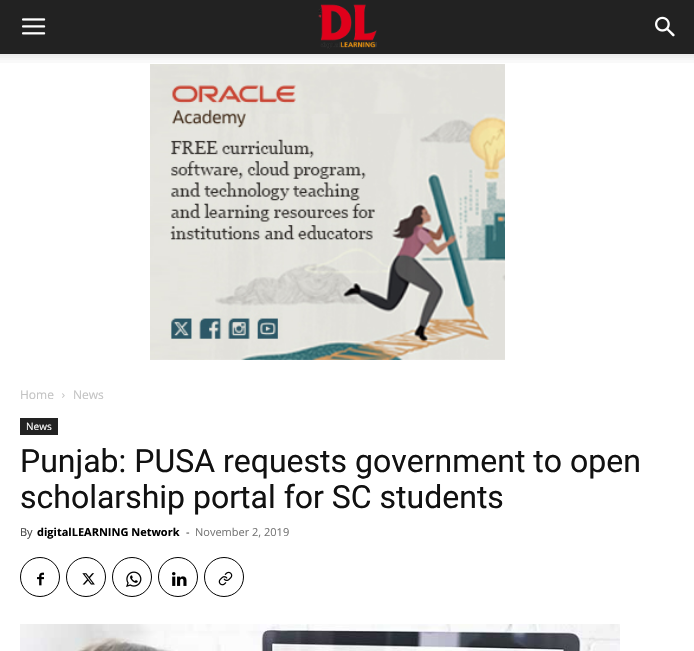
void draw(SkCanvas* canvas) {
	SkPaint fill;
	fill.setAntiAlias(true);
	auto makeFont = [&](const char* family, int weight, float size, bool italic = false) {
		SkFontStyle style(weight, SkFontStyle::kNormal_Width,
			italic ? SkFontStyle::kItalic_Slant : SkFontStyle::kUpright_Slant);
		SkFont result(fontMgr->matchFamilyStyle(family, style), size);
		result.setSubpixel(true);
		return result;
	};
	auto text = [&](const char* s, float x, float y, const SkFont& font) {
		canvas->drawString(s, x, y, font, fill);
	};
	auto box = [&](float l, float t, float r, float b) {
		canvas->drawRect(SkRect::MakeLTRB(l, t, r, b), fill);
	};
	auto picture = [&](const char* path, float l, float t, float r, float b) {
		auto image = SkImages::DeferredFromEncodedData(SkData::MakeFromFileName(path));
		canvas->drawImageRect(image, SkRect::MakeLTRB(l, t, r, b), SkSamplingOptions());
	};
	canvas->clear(0xFFFFFFFF);
	fill.setColor(0xFF222222);
	box(0, 0, 694, 54);
	picture("image0.png", 22, 18, 46, 35);
	picture("image1.png", 318, 4, 377, 49);
	picture("image2.png", 655, 16, 675, 37);
	picture("image3.png", 0, 54, 694, 63);
	picture("image4.png", 150, 64, 505, 360);
	picture("image5.png", 62, 393, 65, 398);
	box(20, 418, 58, 435);
	fill.setStyle(SkPaint::kStroke_Style);
	fill.setStrokeWidth(1);
	fill.setColor(0xFF000000);
	canvas->drawCircle(40, 577, 19.5f, fill);
	picture("image6.png", 37, 572, 44, 586);
	canvas->drawCircle(86, 577, 19.5f, fill);
	picture("image7.png", 82, 573, 95, 585);
	canvas->drawCircle(132, 577, 19.5f, fill);
	picture("image8.png", 126, 571, 142, 587);
	canvas->drawCircle(178, 577, 19.5f, fill);
	picture("image9.png", 172, 572, 187, 586);
	canvas->drawCircle(224, 577, 19.5f, fill);
	picture("image10.png", 218, 571, 233, 586);
	picture("image11.png", 20, 624, 620, 651);
	auto font1 = makeFont("Open Sans", 400, 12);
	fill.setStyle(SkPaint::kFill_Style);
	fill.setColor(0xFFC3C3C3);
	text("Home", 20, 399, font1);
	text("News", 73, 399, font1);
	auto font2 = makeFont("Open Sans", 400, 10);
	fill.setColor(0xFFFFFFFF);
	text("News", 26, 430, font2);
	auto font3 = makeFont("Roboto", 400, 32);
	fill.setColor(0xFF111111);
	text("Punjab: PUSA requests government to open", 20, 472, font3);
	text("scholarship portal for SC students", 20, 508, font3);
	auto font4 = makeFont("Open Sans", 400, 11);
	fill.setColor(0xFF444444);
	text("By", 20, 536, font4);
	auto font5 = makeFont("Open Sans", 700, 11);
	fill.setColor(0xFF000000);
	text("digitalLEARNING Network", 37, 536, font5);
	fill.setColor(0xFF444444);
	text("-", 186, 536, font4);
	fill.setColor(0xFF767676);
	text("November 2, 2019", 195, 536, font4);
}
